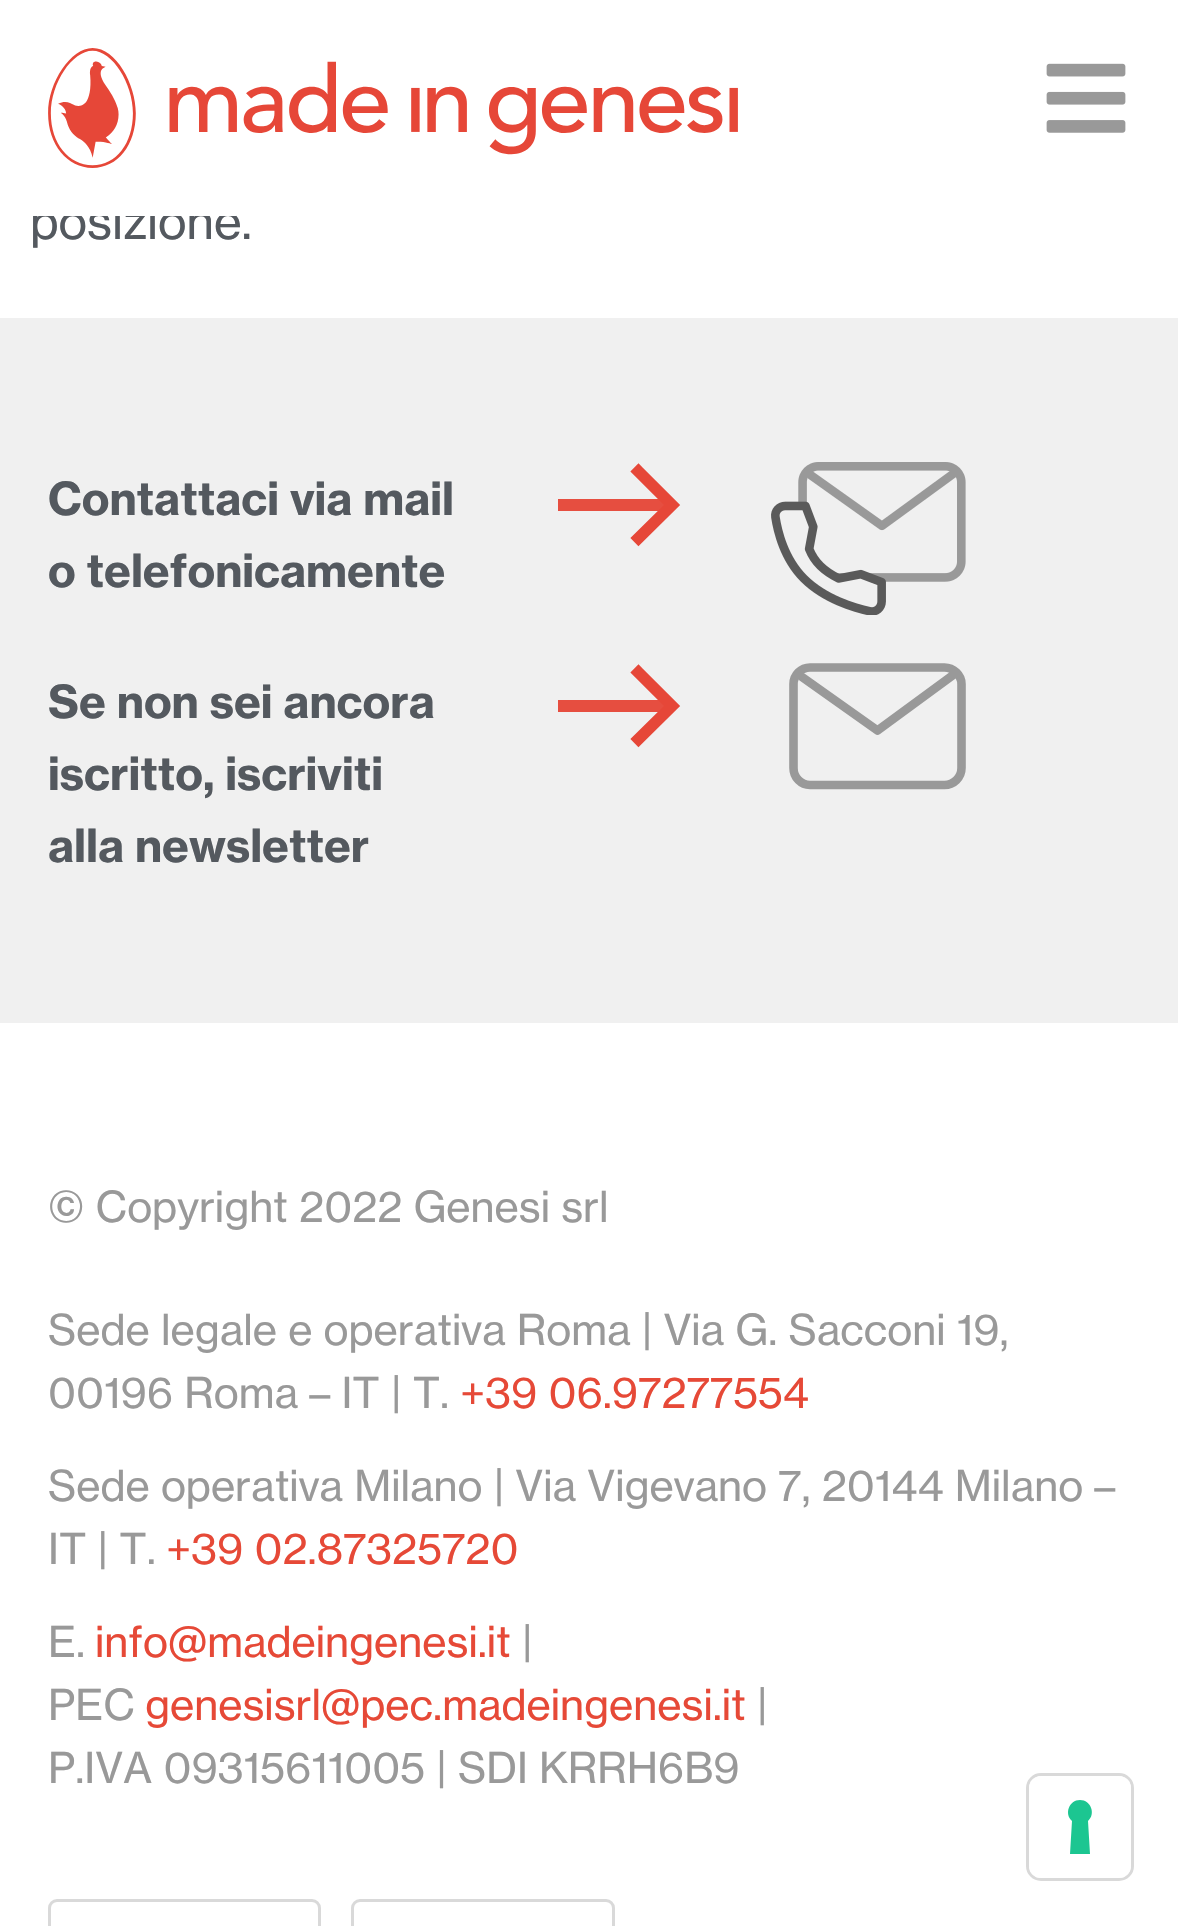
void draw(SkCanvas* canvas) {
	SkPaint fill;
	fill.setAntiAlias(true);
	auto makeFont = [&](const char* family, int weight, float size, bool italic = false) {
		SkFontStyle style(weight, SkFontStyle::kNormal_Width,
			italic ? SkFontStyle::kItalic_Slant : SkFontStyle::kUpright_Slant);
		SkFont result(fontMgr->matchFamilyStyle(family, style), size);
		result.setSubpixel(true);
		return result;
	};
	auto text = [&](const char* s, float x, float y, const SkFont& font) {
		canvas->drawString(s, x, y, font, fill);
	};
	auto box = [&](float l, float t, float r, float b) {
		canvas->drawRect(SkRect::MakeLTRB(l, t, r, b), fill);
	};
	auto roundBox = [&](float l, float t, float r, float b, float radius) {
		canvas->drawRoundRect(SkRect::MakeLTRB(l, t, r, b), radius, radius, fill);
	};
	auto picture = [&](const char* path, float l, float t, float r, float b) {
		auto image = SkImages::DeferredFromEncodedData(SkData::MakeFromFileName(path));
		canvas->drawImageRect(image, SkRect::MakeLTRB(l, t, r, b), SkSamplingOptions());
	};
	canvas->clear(0xFFFFFFFF);
	picture("image0.png", 48, 48, 738, 168);
	picture("image1.png", 1046, 63, 1126, 133);
	fill.setColor(0xFFF0F0F0);
	box(0, 318, 1178, 1023);
	fill.setColor(0xFFE64E40);
	box(558, 499, 664, 511);
	fill.setStyle(SkPaint::kStroke_Style);
	fill.setStrokeWidth(11.5f);
	fill.setStrokeCap(SkPaint::kSquare_Cap);
	fill.setColor(0xFFE64738);
	canvas->drawPath(SkPathBuilder().moveTo(638.5f, 471.5f).lineTo(672, 505).lineTo(638.5f, 538).detach(), fill);
	picture("image2.png", 771, 462, 966, 615);
	fill.setStyle(SkPaint::kFill_Style);
	fill.setColor(0xFFE64E40);
	box(558, 700, 664, 712);
	fill.setStyle(SkPaint::kStroke_Style);
	fill.setColor(0xFFE64738);
	canvas->drawPath(SkPathBuilder().moveTo(638.5f, 672.5f).lineTo(672, 706).lineTo(638.5f, 739).detach(), fill);
	fill.setStrokeWidth(8.6f);
	fill.setStrokeCap(SkPaint::kRound_Cap);
	fill.setStrokeJoin(SkPaint::kRound_Join);
	fill.setColor(0xFF999999);
	canvas->drawPath(SkPathBuilder().moveTo(802, 677).lineTo(877.5f, 730.5f).lineTo(954.5f, 674).detach(), fill);
	fill.setStrokeCap(SkPaint::kButt_Cap);
	fill.setStrokeJoin(SkPaint::kMiter_Join);
	canvas->drawPath(SkPathBuilder().moveTo(793.5f, 768).lineTo(793.5f, 684).cubicTo(793.5f, 675, 801, 667.5f, 810, 667.5f).lineTo(944.5f, 667.5f).cubicTo(953.5f, 667.5f, 961.5f, 675, 961.5f, 684).lineTo(961.5f, 768).cubicTo(961.5f, 777.5f, 953.5f, 785, 944.5f, 785).lineTo(810, 785).cubicTo(801, 785, 793.5f, 777.5f, 793.5f, 768).close().detach(), fill);
	fill.setStrokeWidth(3);
	fill.setColor(0xFFD9D9D9);
	canvas->drawRoundRect(SkRect::MakeLTRB(49.5f, 1900.5f, 319.5f, 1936.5f), 7.5f, 7.5f, fill);
	canvas->drawRoundRect(SkRect::MakeLTRB(352.5f, 1900.5f, 613.5f, 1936.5f), 7.5f, 7.5f, fill);
	canvas->drawRoundRect(SkRect::MakeLTRB(1027.5f, 1774.5f, 1132.5f, 1879.5f), 13.5f, 13.5f, fill);
	fill.setStyle(SkPaint::kFill_Style);
	fill.setColor(0xFFFFFFFF);
	roundBox(1029, 1776, 1131, 1878, 12);
	fill.setColor(0xFF1CC691);
	canvas->drawPath(SkPathBuilder(SkPathFillType::kEvenOdd).moveTo(1080, 1800).cubicTo(1091, 1800, 1096, 1814, 1088, 1821).lineTo(1090, 1854).lineTo(1070, 1854).lineTo(1072, 1821).cubicTo(1064, 1814, 1069, 1800, 1080, 1800).close().detach(), fill);
	auto font1 = makeFont("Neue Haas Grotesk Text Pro", 400, 48);
	fill.setColor(0xFF54595F);
	text("posizione.", 30, 239, font1);
	fill.setColor(0xFFFFFFFF);
	box(33, 203, 236, 216);
	auto font2 = makeFont("Neue Haas Grotesk Text Pro", 700, 45);
	fill.setColor(0xFF54595F);
	text("Contattaci via mail", 48, 515, font2);
	text("o telefonicamente", 48, 587, font2);
	text("Se non sei ancora", 48, 718, font2);
	text("iscritto, iscriviti", 48, 790, font2);
	text("alla newsletter", 48, 862, font2);
	auto font3 = makeFont("Neue Haas Grotesk Text Pro", 400, 42);
	fill.setColor(0xFF999999);
	text("© Copyright 2022 Genesi srl", 48, 1222, font3);
	text("Sede legale e operativa Roma | Via G. Sacconi 19,", 48, 1345, font3);
	text("00196 Roma – IT | T.", 48, 1408, font3);
	fill.setColor(0xFFE64937);
	text("+39 06.97277554", 460, 1408, font3);
	fill.setColor(0xFF999999);
	text("Sede operativa Milano | Via Vigevano 7, 20144 Milano –", 48, 1501, font3);
	text("IT | T.", 48, 1564, font3);
	fill.setColor(0xFFE64937);
	text("+39 02.87325720", 166, 1564, font3);
	fill.setColor(0xFF999999);
	text("E.", 48, 1657, font3);
	fill.setColor(0xFFE64937);
	text("info@madeingenesi.it", 95, 1657, font3);
	fill.setColor(0xFF999999);
	text("|", 522, 1657, font3);
	text("PEC", 48, 1720, font3);
	fill.setColor(0xFFE64937);
	text("genesisrl@pec.madeingenesi.it", 145, 1720, font3);
	fill.setColor(0xFF999999);
	text("|", 757, 1720, font3);
	text("P.IVA 09315611005 | SDI KRRH6B9", 48, 1783, font3);
}
